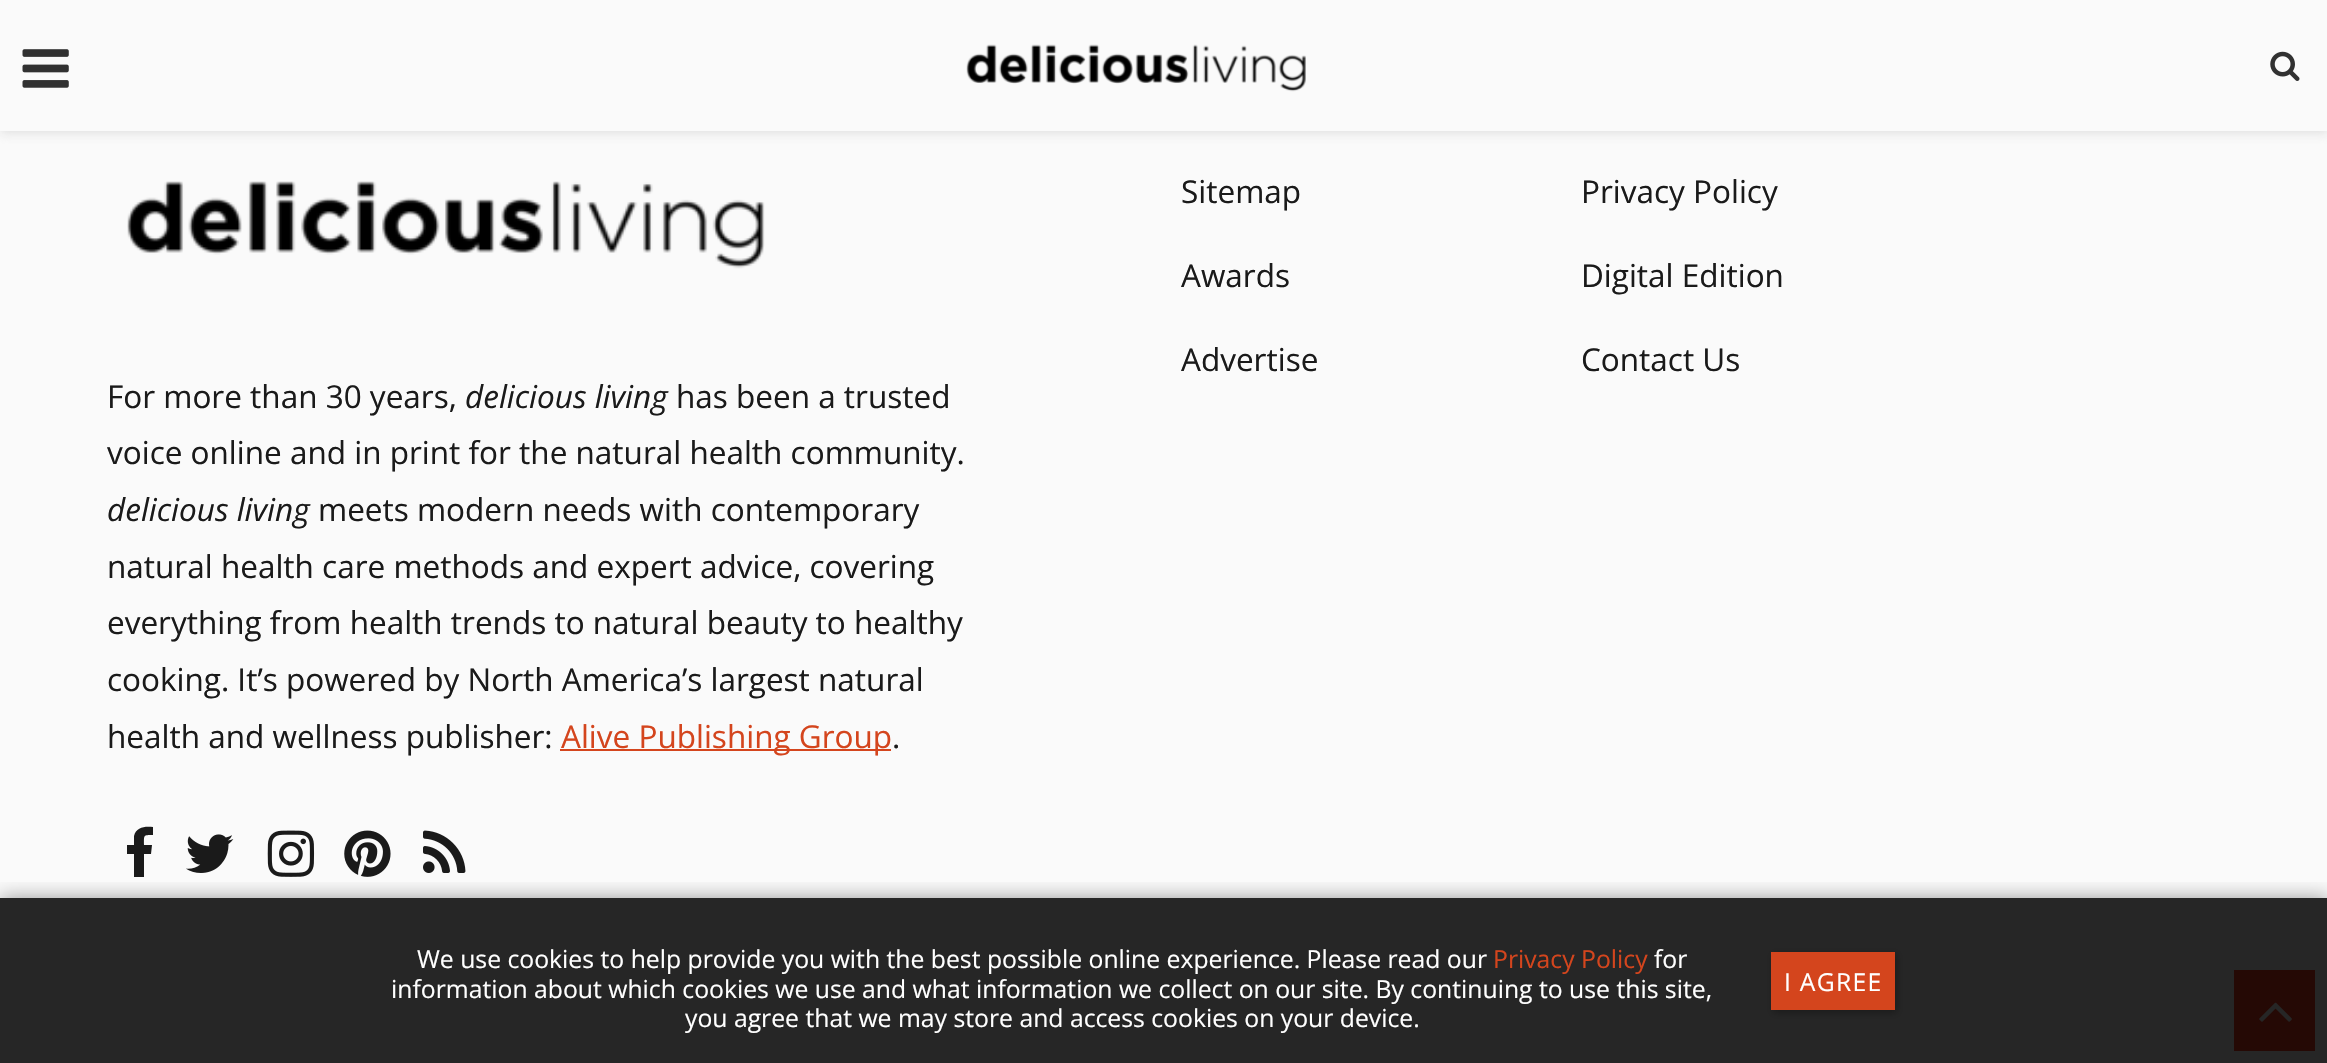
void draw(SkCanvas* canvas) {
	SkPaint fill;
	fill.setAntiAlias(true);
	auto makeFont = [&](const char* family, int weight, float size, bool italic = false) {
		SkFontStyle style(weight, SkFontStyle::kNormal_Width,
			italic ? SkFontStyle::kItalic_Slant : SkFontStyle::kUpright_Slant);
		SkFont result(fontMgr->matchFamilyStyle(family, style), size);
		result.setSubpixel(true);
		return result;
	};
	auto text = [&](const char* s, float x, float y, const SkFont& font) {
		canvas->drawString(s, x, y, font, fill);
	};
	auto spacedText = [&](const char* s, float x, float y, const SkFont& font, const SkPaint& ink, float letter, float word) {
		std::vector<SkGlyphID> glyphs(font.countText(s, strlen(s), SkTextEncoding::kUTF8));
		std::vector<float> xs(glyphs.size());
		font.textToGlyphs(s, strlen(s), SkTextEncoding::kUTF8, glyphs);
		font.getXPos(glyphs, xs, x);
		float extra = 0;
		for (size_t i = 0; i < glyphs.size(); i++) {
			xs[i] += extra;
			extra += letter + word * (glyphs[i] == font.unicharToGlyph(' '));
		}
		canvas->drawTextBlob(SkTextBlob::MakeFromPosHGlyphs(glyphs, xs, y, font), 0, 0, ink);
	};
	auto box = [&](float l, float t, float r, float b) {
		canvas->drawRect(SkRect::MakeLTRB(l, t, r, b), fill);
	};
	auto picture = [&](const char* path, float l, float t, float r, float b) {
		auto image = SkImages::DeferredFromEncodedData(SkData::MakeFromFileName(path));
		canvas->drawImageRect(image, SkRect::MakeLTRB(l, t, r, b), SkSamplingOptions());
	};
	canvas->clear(0xFF262626);
	fill.setColor(0xFFFAFAFA);
	box(0, 131, 2327, 898);
	fill.setColor(0x75BEBEBE);
	fill.setMaskFilter(SkMaskFilter::MakeBlur(kNormal_SkBlurStyle, 5.5f));
	canvas->drawRect(SkRect::MakeLTRB(0, 2, 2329, 133), fill);
	fill.setMaskFilter(nullptr);
	fill.setColor(0xFFFAFAFA);
	box(0, 0, 2327, 131);
	picture("image0.png", 22, 49, 69, 88);
	picture("image1.png", 966, 44, 1306, 92);
	picture("image2.png", 2270, 51, 2300, 81);
	picture("image3.png", 127, 181, 765, 269);
	fill.setColor(0xFFD4451D);
	box(560, 749, 891, 751);
	fill.setColor(0xFF1A1A1A);
	canvas->drawPath(SkPathBuilder().moveTo(153, 827).lineTo(153, 835).cubicTo(143, 835, 144, 835, 144, 845).lineTo(152, 845).lineTo(151, 854).lineTo(144, 854).lineTo(144, 877).lineTo(134, 877).lineTo(134, 854).lineTo(127, 854).lineTo(127, 845).lineTo(134, 845).lineTo(134, 836).cubicTo(136, 827, 145, 826, 153, 827).close().detach(), fill);
	picture("image4.png", 186, 834, 234, 873);
	picture("image5.png", 267, 830, 315, 877);
	picture("image6.png", 344, 830, 391, 877);
	picture("image7.png", 423, 830, 466, 873);
	fill.setColor(0xFF250905);
	box(2234, 970, 2315, 1051);
	picture("image8.png", 2259, 1002, 2292, 1022);
	canvas->save();
	canvas->clipRect(SkRect::MakeLTRB(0, 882, 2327, 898));
	fill.setColor(0x66000000);
	fill.setMaskFilter(SkMaskFilter::MakeBlur(kNormal_SkBlurStyle, 9.5f));
	canvas->drawRect(SkRect::MakeLTRB(0, 898, 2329, 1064), fill);
	fill.setMaskFilter(nullptr);
	canvas->restore();
	fill.setColor(0x47000000);
	fill.setMaskFilter(SkMaskFilter::MakeBlur(kNormal_SkBlurStyle, 3.5f));
	canvas->drawRect(SkRect::MakeLTRB(1773, 954, 1897, 1013), fill);
	fill.setMaskFilter(nullptr);
	fill.setColor(0xFFD4451D);
	box(1771, 952, 1895, 1010);
	auto font1 = makeFont("Open Sans", 400, 31.5f);
	fill.setColor(0xFF1A1A1A);
	text("Sitemap", 1181, 203, font1);
	text("Awards", 1181, 287, font1);
	text("Advertise", 1181, 371, font1);
	text("Privacy Policy", 1581, 203, font1);
	text("Digital Edition", 1581, 287, font1);
	text("Contact Us", 1581, 371, font1);
	text("For more than 30 years,", 107, 408, font1);
	auto font2 = makeFont("Open Sans", 400, 31.5f, true);
	text("delicious living", 465, 408, font2);
	text("has been a trusted", 676, 408, font1);
	text("voice online and in print for the natural health community.", 107, 464, font1);
	text("delicious living", 107, 521, font2);
	text("meets modern needs with contemporary", 318, 521, font1);
	text("natural health care methods and expert advice, covering", 107, 578, font1);
	text("everything from health trends to natural beauty to healthy", 107, 634, font1);
	text("cooking. It’s powered by North America’s largest natural", 107, 691, font1);
	text("health and wellness publisher:", 107, 748, font1);
	fill.setColor(0xFFD4451D);
	text("Alive Publishing Group", 561, 748, font1);
	fill.setColor(0xFF1A1A1A);
	text(".", 892, 748, font1);
	auto font3 = makeFont("Open Sans", 400, 24.75f);
	fill.setColor(0xFFFFFFFF);
	text("We use cookies to help provide you with the best possible online experience. Please read our", 417, 968, font3);
	fill.setColor(0xFFD4451D);
	text("Privacy Policy", 1493, 968, font3);
	fill.setColor(0xFFFFFFFF);
	text("for", 1654, 968, font3);
	text("information about which cookies we use and what information we collect on our site. By continuing to use this site,", 391, 998, font3);
	text("you agree that we may store and access cookies on your device.", 685, 1027, font3);
	spacedText("I AGREE", 1784, 991, font3, fill, 1.25f, 0);
}
